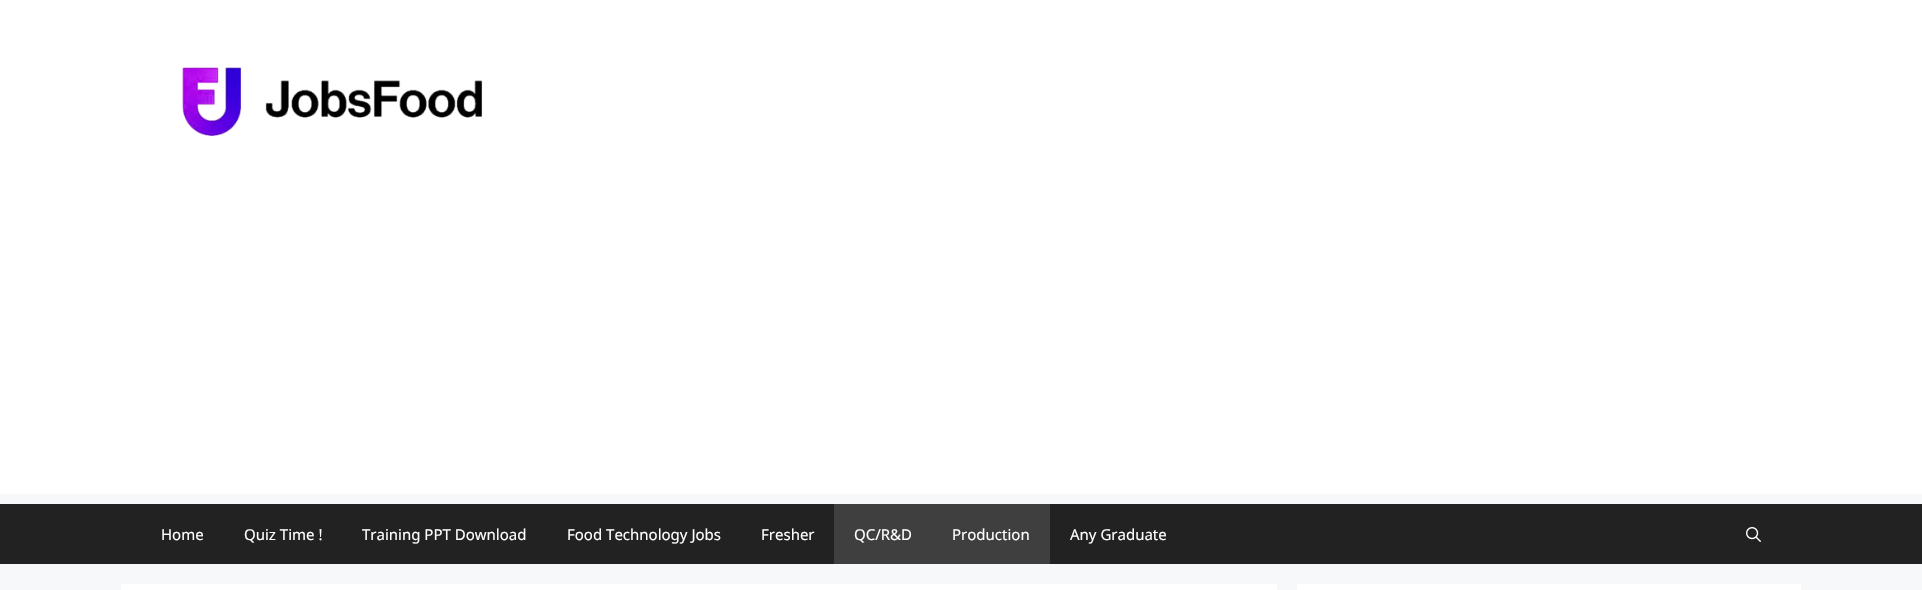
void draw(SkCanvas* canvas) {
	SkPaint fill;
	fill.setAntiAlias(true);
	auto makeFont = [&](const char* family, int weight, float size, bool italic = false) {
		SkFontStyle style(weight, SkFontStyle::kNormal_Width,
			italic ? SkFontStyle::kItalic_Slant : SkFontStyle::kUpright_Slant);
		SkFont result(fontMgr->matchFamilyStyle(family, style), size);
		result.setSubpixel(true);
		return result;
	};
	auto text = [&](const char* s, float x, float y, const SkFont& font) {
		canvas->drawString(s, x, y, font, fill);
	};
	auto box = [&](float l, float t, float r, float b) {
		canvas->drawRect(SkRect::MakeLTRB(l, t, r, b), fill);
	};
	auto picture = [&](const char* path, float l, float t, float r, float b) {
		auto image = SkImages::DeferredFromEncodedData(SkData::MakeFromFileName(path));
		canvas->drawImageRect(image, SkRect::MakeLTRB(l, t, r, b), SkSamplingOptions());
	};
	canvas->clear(0xFFF7F8F9);
	fill.setColor(0xFFFFFFFF);
	box(0, 0, 1922, 494);
	picture("image0.png", 182, 67, 483, 137);
	fill.setColor(0xFF222222);
	box(0, 504, 1922, 564);
	fill.setColor(0xFF3F3F3F);
	box(834, 504, 1050, 564);
	picture("image1.png", 1746, 527, 1761, 542);
	fill.setColor(0xFFFFFFFF);
	box(121, 584, 1277, 590);
	box(1297, 584, 1801, 590);
	auto font1 = makeFont("Noto Sans", 400, 15);
	text("Home", 161, 540, font1);
	text("Quiz Time !", 244, 540, font1);
	text("Training PPT Download", 362, 540, font1);
	text("Food Technology Jobs", 567, 540, font1);
	text("Fresher", 761, 540, font1);
	text("QC/R&D", 854, 540, font1);
	text("Production", 952, 540, font1);
	text("Any Graduate", 1070, 540, font1);
}
